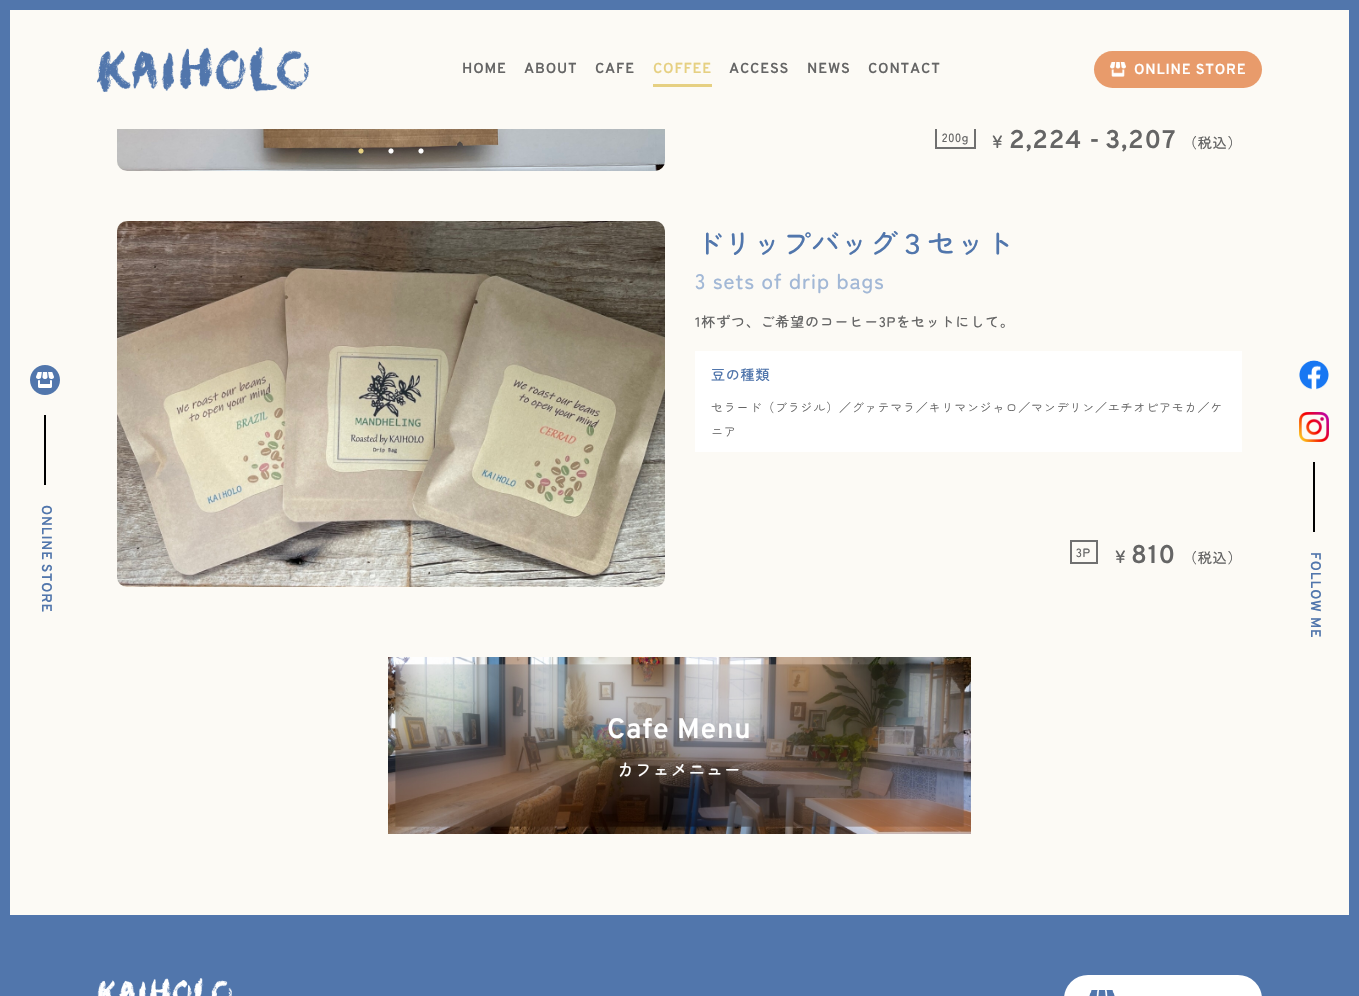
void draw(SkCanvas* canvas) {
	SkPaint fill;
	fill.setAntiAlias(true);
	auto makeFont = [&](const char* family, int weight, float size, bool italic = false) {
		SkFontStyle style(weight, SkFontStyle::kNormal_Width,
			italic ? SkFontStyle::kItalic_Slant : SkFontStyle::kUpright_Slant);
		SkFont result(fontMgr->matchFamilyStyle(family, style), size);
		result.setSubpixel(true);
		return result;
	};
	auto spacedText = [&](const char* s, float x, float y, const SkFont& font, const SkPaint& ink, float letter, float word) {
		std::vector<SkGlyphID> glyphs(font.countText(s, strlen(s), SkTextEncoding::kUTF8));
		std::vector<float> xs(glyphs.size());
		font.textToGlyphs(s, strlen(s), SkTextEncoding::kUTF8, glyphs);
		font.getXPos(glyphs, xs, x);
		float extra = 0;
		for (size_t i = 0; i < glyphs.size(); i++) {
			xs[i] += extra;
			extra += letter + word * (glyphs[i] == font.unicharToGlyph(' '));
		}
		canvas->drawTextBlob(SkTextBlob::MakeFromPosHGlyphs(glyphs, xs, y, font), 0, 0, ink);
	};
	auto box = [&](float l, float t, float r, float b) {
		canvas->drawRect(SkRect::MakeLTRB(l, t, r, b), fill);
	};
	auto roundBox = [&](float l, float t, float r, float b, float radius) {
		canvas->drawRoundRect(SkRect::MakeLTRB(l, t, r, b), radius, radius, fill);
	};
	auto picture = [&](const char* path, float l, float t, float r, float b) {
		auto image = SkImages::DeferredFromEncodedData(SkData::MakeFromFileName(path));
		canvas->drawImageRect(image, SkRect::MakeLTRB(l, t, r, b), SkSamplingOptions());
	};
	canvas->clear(0xFFFCFAF5);
	fill.setStyle(SkPaint::kStroke_Style);
	fill.setStrokeWidth(10);
	fill.setColor(0xFF5176AC);
	canvas->drawRect(SkRect::MakeLTRB(5, -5, 1354, 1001), fill);
	fill.setStrokeWidth(2);
	fill.setColor(0xFF707070);
	canvas->drawRect(SkRect::MakeLTRB(936, 126, 975, 148), fill);
	fill.setStyle(SkPaint::kFill_Style);
	fill.setColor(0xFFFCFAF5);
	box(935, 125, 976, 129);
	fill.setColor(0xFF5176AC);
	box(10, 0, 1349, 10);
	picture("image0.png", 97, 47, 309, 92);
	fill.setColor(0xFFE6D082);
	box(653, 84, 712, 87);
	fill.setColor(0xFFE89B6B);
	roundBox(1094, 51, 1262, 88, 18.5f);
	picture("image1.png", 1110, 62, 1126, 77);
	picture("image2.png", 30, 365, 60, 395);
	fill.setColor(0xFF000000);
	box(44, 415, 46, 485);
	picture("image3.png", 117, 129, 665, 171);
	picture("image4.png", 358, 148, 364, 154);
	picture("image5.png", 388, 148, 394, 154);
	picture("image6.png", 418, 148, 424, 154);
	picture("image7.png", 117, 221, 665, 587);
	fill.setColor(0xFFFFFFFF);
	box(695, 351, 1242, 452);
	fill.setStyle(SkPaint::kStroke_Style);
	fill.setColor(0xFF707070);
	canvas->drawRect(SkRect::MakeLTRB(1071, 541, 1097, 563), fill);
	picture("image8.png", 388, 657, 971, 834);
	picture("image9.png", 1299, 360, 1329, 390);
	picture("image10.png", 1299, 412, 1329, 442);
	fill.setStyle(SkPaint::kFill_Style);
	fill.setColor(0xFF000000);
	box(1313, 462, 1315, 532);
	fill.setColor(0xFF5176AC);
	box(10, 915, 1349, 996);
	picture("image11.png", 97, 978, 232, 996);
	fill.setColor(0xFFFFFFFF);
	roundBox(1064, 975, 1262, 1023, 27);
	picture("image12.png", 1089, 990, 1115, 996);
	auto font1 = makeFont("Overpass", 600, 14.5f);
	fill.setColor(0xFF656565);
	spacedText("HOME", 462, 73, font1, fill, 0.8f, 0);
	spacedText("ABOUT", 524, 73, font1, fill, 0.8f, 0);
	spacedText("CAFE", 595, 73, font1, fill, 0.8f, 0);
	fill.setColor(0xFFE6D082);
	spacedText("COFFEE", 653, 73, font1, fill, 0.8f, 0);
	fill.setColor(0xFF656565);
	spacedText("ACCESS", 729, 73, font1, fill, 0.8f, 0);
	spacedText("NEWS", 807, 73, font1, fill, 0.8f, 0);
	spacedText("CONTACT", 868, 73, font1, fill, 0.8f, 0);
	fill.setColor(0xFFFFFFFF);
	spacedText("ONLINE STORE", 1134, 74, font1, fill, 0.8f, 0);
	auto font2 = makeFont("Overpass", 600, 14);
	fill.setColor(0xFF5176AC);
	canvas->save();
	canvas->rotate(90, 42, 505);
	spacedText("ONLINE STORE", 42, 505, font2, fill, 0.8f, -1);
	canvas->restore();
	auto font3 = makeFont("Zen Maru Gothic", 500, 12);
	fill.setColor(0xFF656565);
	spacedText("200g", 942, 142, font3, fill, 0.8f, 0);
	auto font4 = makeFont("Zen Maru Gothic", 500, 18);
	spacedText("¥", 992, 148, font4, fill, 0.8f, 0);
	auto font5 = makeFont("Overpass", 600, 25.5f);
	spacedText("2,224 -", 1009, 148, font5, fill, 0.8f, 0);
	spacedText("3,207", 1105, 148, font5, fill, 0.8f, 0);
	auto font6 = makeFont("Zen Maru Gothic", 500, 14);
	spacedText("（税込）", 1183, 148, font6, fill, 0.8f, 0);
	auto font7 = makeFont("Zen Maru Gothic", 500, 28.25f);
	fill.setColor(0xFF5176AC);
	spacedText("ドリップバッグ３セット", 695, 254, font7, fill, 0.8f, 0);
	auto font8 = makeFont("Zen Maru Gothic", 500, 21.25f);
	fill.setColor(0xFFA2B8D6);
	spacedText("3 sets of drip bags", 695, 289, font8, fill, 0.8f, 0);
	fill.setColor(0xFF656565);
	spacedText("1杯ずつ、ご希望のコーヒー3Pをセットにして。", 695, 327, font6, fill, 0.8f, 0);
	fill.setColor(0xFF5176AC);
	spacedText("豆の種類", 711, 380, font6, fill, 0.8f, 0);
	auto font9 = makeFont("Zen Maru Gothic", 400, 12);
	fill.setColor(0xFF656565);
	spacedText("セラード（ブラジル）／グァテマラ／キリマンジャロ／マンデリン／エチオピアモカ／ケ", 711, 412, font9, fill, 0.8f, 0);
	spacedText("ニア", 711, 436, font9, fill, 0.8f, 0);
	spacedText("3P", 1076, 557, font3, fill, 0.8f, 0);
	spacedText("¥", 1115, 563, font4, fill, 0.8f, 0);
	spacedText("810", 1131, 563, font5, fill, 0.8f, 0);
	spacedText("（税込）", 1183, 563, font6, fill, 0.8f, 0);
	auto font10 = makeFont("Overpass", 600, 28.25f);
	fill.setColor(0xFFFFFFFF);
	spacedText("Cafe Menu", 607, 738, font10, fill, 0.8f, 0);
	auto font11 = makeFont("Zen Maru Gothic", 500, 17);
	spacedText("カフェメニュー", 617, 776, font11, fill, 0.8f, 0);
	fill.setColor(0xFF5176AC);
	canvas->save();
	canvas->rotate(90, 1311, 552);
	spacedText("FOLLOW ME", 1311, 552, font2, fill, 0.8f, 0);
	canvas->restore();
}
